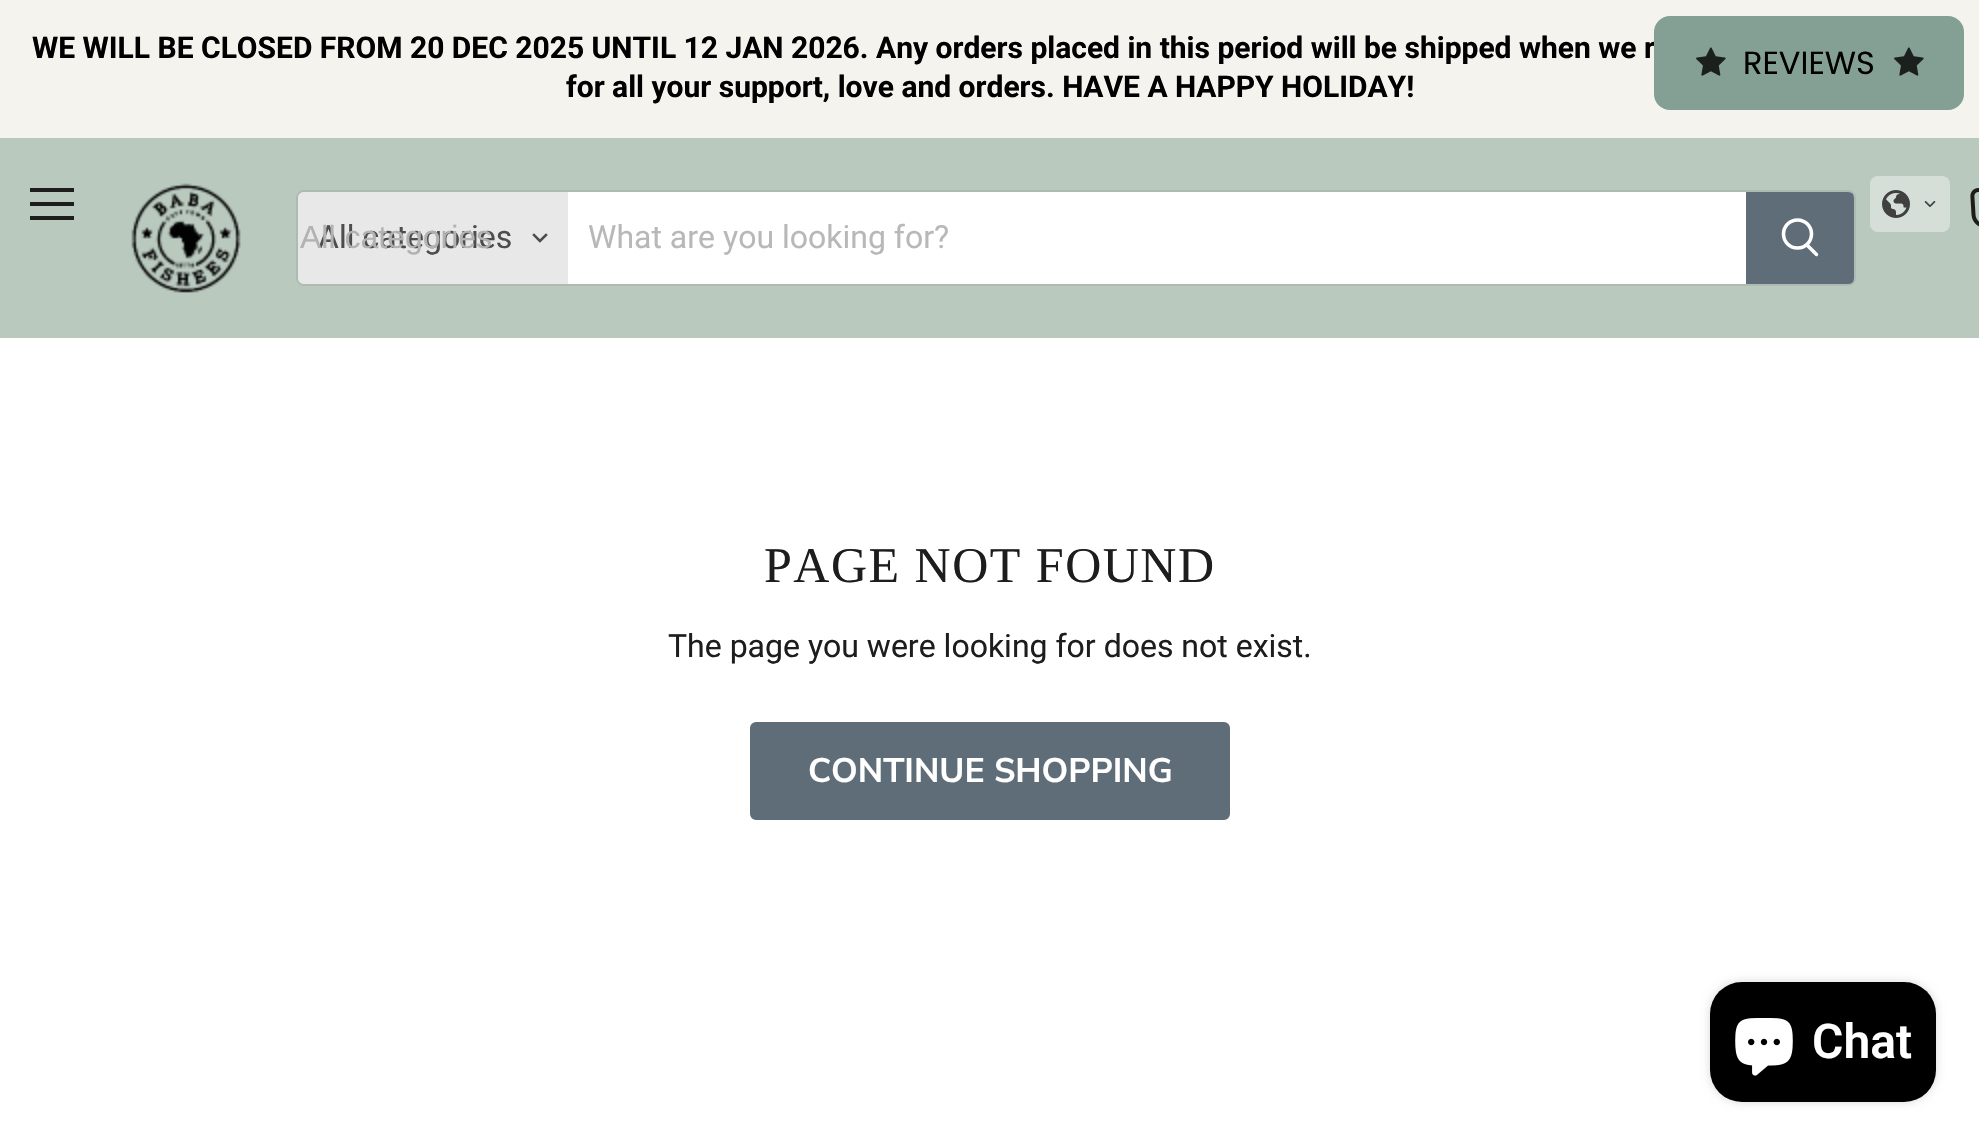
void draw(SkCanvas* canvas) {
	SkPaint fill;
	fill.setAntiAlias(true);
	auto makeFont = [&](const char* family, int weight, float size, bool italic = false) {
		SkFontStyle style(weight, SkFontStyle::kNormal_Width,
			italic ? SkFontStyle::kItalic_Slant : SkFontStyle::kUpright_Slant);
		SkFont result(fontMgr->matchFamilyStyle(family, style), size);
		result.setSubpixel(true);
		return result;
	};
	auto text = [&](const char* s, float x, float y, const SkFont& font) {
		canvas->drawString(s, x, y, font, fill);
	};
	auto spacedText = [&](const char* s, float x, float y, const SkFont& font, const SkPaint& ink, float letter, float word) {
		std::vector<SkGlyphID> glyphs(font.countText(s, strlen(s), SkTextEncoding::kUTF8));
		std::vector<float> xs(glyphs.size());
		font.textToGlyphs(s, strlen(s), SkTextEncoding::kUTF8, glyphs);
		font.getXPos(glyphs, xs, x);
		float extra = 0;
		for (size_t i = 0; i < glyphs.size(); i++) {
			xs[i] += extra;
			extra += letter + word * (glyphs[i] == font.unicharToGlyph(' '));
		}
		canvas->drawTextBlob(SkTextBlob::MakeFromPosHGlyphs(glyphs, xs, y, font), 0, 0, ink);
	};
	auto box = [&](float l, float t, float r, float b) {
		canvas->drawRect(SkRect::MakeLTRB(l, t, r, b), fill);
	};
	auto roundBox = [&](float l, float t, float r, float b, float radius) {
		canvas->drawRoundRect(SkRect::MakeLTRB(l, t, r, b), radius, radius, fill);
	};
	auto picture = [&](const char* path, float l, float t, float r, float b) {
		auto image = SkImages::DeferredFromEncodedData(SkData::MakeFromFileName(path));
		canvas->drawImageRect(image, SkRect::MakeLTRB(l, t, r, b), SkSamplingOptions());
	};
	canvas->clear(0xFFFFFFFF);
	fill.setColor(0xFFF5F3ED);
	box(0, 0, 1979, 138);
	fill.setColor(0xFFB9C9BE);
	box(0, 138, 1979, 338);
	fill.setColor(0xFF1D1D1D);
	box(30, 188, 74, 192);
	box(30, 202, 74, 206);
	box(30, 216, 74, 220);
	fill.setColor(0xFFD5DFD8);
	roundBox(1870, 176, 1950, 232, 8);
	picture("image1.png", 1882, 190, 1910, 218);
	picture("image2.png", 1924, 201, 1936, 207);
	picture("image3.png", 1970, 188, 1979, 227);
	picture("image4.png", 131, 183, 241, 293);
	fill.setStyle(SkPaint::kStroke_Style);
	fill.setStrokeWidth(2);
	fill.setColor(0x33808080);
	canvas->drawRoundRect(SkRect::MakeLTRB(297, 191, 1855, 285), 7, 7, fill);
	fill.setStyle(SkPaint::kFill_Style);
	fill.setColor(0xFFE8E8E8);
	canvas->drawPath(SkPathBuilder().moveTo(304, 192).lineTo(568, 192).lineTo(568, 284).lineTo(304, 284).cubicTo(300.5f, 284, 298, 281.5f, 298, 278).lineTo(298, 198).cubicTo(298, 194.5f, 300.5f, 192, 304, 192).close().detach(), fill);
	fill.setStyle(SkPaint::kStroke_Style);
	fill.setStrokeWidth(2.5f);
	fill.setStrokeCap(SkPaint::kSquare_Cap);
	fill.setColor(0xFF4D4D4D);
	canvas->drawPath(SkPathBuilder().moveTo(540, 241).lineTo(546, 235).moveTo(540, 241).lineTo(534, 235).detach(), fill);
	fill.setStyle(SkPaint::kFill_Style);
	fill.setColor(0xFFFFFFFF);
	box(568, 192, 1746, 284);
	fill.setColor(0xFF5F6D78);
	canvas->drawPath(SkPathBuilder().moveTo(1747, 193).lineTo(1848, 193).cubicTo(1851, 193, 1853, 195, 1853, 198).lineTo(1853, 278).cubicTo(1853, 281, 1851, 283, 1848, 283).lineTo(1747, 283).close().detach(), fill);
	fill.setStyle(SkPaint::kStroke_Style);
	fill.setStrokeWidth(2);
	fill.setStrokeCap(SkPaint::kButt_Cap);
	canvas->drawPath(SkPathBuilder().moveTo(1747, 193).lineTo(1848, 193).cubicTo(1851, 193, 1853, 195, 1853, 198).lineTo(1853, 278).cubicTo(1853, 281, 1851, 283, 1848, 283).lineTo(1747, 283).close().detach(), fill);
	fill.setStrokeWidth(3.5f);
	fill.setStrokeCap(SkPaint::kRound_Cap);
	fill.setColor(0xFFFFFFFF);
	canvas->drawPath(SkPathBuilder().moveTo(1816.5f, 254.5f).lineTo(1807, 245).detach(), fill);
	fill.setStrokeCap(SkPaint::kButt_Cap);
	canvas->drawCircle(1797.5f, 234, 14, fill);
	fill.setStyle(SkPaint::kFill_Style);
	fill.setColor(0xFF5F6D78);
	canvas->drawRoundRect(SkRect::MakeLTRB(751, 723, 1229, 819), 5, 5, fill);
	fill.setStyle(SkPaint::kStroke_Style);
	fill.setStrokeWidth(2);
	canvas->drawRoundRect(SkRect::MakeLTRB(751, 723, 1229, 819), 5, 5, fill);
	fill.setStyle(SkPaint::kFill_Style);
	fill.setColor(0x26000000);
	fill.setMaskFilter(SkMaskFilter::MakeBlur(kNormal_SkBlurStyle, 5));
	canvas->drawRoundRect(SkRect::MakeLTRB(1710, 982, 1936, 1102), 32, 32, fill);
	fill.setMaskFilter(nullptr);
	fill.setColor(0xFF000000);
	roundBox(1710, 982, 1936, 1102, 32);
	picture("image5.png", 1735, 1018, 1793, 1076);
	auto font1 = makeFont("Roboto", 700, 30);
	text("WE WILL BE CLOSED FROM 20 DEC 2025 UNTIL 12 JAN 2026. Any orders placed in this period will be shipped when we r", 32, 58, font1);
	text("for all your support, love and orders. HAVE A HAPPY HOLIDAY!", 566, 97, font1);
	fill.setColor(0xFF849F94);
	roundBox(1654, 16, 1964, 110, 16);
	picture("image0.png", 1696, 47, 1726, 76);
	auto font2 = makeFont("Poppins", 400, 32);
	fill.setColor(0xFF000000);
	text("REVIEWS", 1743, 74, font2);
	picture("image0.png", 1894, 47, 1924, 76);
	auto font3 = makeFont("Roboto", 400, 32);
	fill.setColor(0xFF4D4D4D);
	text("All categories", 318, 248, font3);
	auto font4 = makeFont("Liberation Sans", 400, 32);
	fill.setColor(0xFFB2B2B2);
	text("All categories", 300, 248, font4);
	fill.setColor(0xFFB8B8B8);
	text("What are you looking for?", 588, 248, font3);
	auto font5 = makeFont("Liberation Serif", 400, 50);
	fill.setColor(0xFF1D1D1D);
	spacedText("PAGE NOT FOUND", 764, 582, font5, fill, 1.5f, 0);
	text("The page you were looking for does not exist.", 668, 657, font3);
	auto font6 = makeFont("Nunito Sans", 700, 34);
	fill.setColor(0xFFFFFFFF);
	text("CONTINUE SHOPPING", 808, 782, font6);
	auto font7 = makeFont("Roboto", 600, 48);
	text("Chat", 1812, 1058, font7);
}
